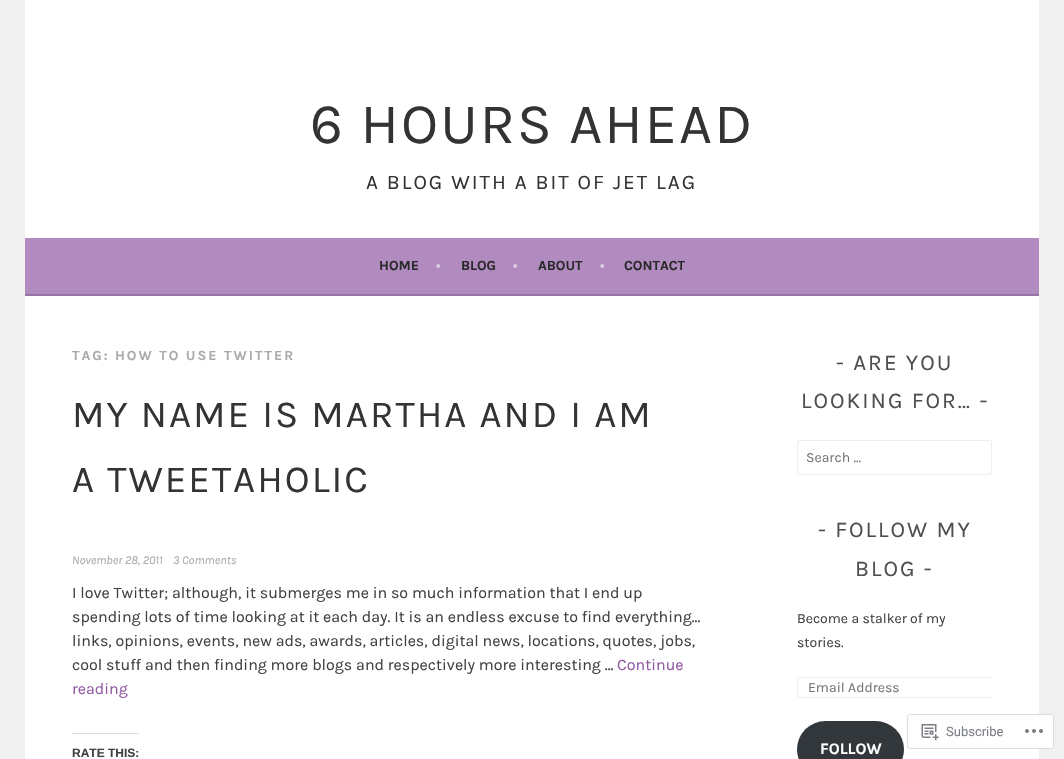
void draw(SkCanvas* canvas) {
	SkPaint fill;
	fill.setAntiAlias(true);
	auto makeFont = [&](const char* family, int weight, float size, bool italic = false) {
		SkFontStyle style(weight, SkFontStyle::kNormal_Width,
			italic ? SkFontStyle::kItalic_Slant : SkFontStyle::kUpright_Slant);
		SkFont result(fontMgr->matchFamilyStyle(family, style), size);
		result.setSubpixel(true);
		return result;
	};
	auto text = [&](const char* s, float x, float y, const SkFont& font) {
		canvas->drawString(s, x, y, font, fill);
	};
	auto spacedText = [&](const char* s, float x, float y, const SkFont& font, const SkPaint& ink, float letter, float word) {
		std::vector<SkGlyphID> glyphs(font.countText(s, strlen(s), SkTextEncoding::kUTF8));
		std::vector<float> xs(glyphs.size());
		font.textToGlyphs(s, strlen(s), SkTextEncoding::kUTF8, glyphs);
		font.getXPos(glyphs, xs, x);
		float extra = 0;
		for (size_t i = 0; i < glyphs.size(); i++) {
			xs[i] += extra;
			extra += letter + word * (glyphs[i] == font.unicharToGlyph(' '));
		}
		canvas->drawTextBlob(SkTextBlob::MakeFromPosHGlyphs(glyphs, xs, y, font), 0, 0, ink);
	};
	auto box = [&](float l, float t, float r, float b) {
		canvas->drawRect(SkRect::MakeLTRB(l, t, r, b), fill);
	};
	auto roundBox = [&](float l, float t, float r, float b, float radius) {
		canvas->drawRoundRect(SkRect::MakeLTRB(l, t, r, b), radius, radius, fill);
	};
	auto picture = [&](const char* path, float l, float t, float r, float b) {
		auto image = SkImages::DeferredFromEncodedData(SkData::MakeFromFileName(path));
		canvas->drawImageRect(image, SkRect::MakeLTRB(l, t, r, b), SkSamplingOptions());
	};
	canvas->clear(0xFFF0F0F0);
	fill.setColor(0xFFFFFFFF);
	box(25, 0, 1039, 238);
	fill.setColor(0xFFB18ABF);
	box(25, 238, 1039, 294);
	fill.setColor(0xFF9675A2);
	box(25, 294, 1039, 296);
	fill.setColor(0xFFFFFFFF);
	box(25, 296, 1039, 759);
	fill.setColor(0xFFDCDCDE);
	box(72, 733, 139, 734);
	fill.setStyle(SkPaint::kStroke_Style);
	fill.setStrokeWidth(1);
	fill.setColor(0xFFEEEEEE);
	canvas->drawRoundRect(SkRect::MakeLTRB(797.5f, 440.5f, 991.5f, 474.5f), 1.5f, 1.5f, fill);
	canvas->save();
	canvas->clipRect(SkRect::MakeLTRB(797, 344, 992, 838));
	canvas->drawRoundRect(SkRect::MakeLTRB(797.5f, 677.5f, 1003.5f, 697.5f), 1.5f, 1.5f, fill);
	canvas->restore();
	fill.setStyle(SkPaint::kFill_Style);
	fill.setColor(0xFF32373C);
	roundBox(797, 721, 904, 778, 28.5f);
	fill.setColor(0xFAFFFFFF);
	roundBox(907, 714, 1054, 749, 3);
	fill.setStyle(SkPaint::kStroke_Style);
	fill.setColor(0xFADCDCDE);
	canvas->drawRoundRect(SkRect::MakeLTRB(907.5f, 714.5f, 1053.5f, 748.5f), 2.5f, 2.5f, fill);
	picture("image0.png", 921, 724, 939, 741);
	picture("image1.png", 1025, 729, 1043, 733);
	auto font1 = makeFont("Karla", 400, 57.5f);
	fill.setStyle(SkPaint::kFill_Style);
	fill.setColor(0xFF333333);
	spacedText("6 HOURS AHEAD", 310, 143, font1, fill, 2, 0);
	auto font2 = makeFont("Karla", 400, 20.75f);
	spacedText("A BLOG WITH A BIT OF JET LAG", 366, 189, font2, fill, 2, 0);
	auto font3 = makeFont("Karla", 700, 14);
	fill.setColor(0xFF282828);
	text("HOME", 379, 270, font3);
	fill.setColor(0xFFDDCDE3);
	text("•", 436, 270, font3);
	fill.setColor(0xFF282828);
	text("BLOG", 461, 270, font3);
	fill.setColor(0xFFDDCDE3);
	text("•", 513, 270, font3);
	fill.setColor(0xFF282828);
	text("ABOUT", 538, 270, font3);
	fill.setColor(0xFFDDCDE3);
	text("•", 600, 270, font3);
	fill.setColor(0xFF282828);
	text("CONTACT", 624, 270, font3);
	fill.setColor(0xFFAAAAAA);
	spacedText("TAG: HOW TO USE TWITTER", 72, 360, font3, fill, 2, 0);
	auto font4 = makeFont("Karla", 400, 38.4f);
	fill.setColor(0xFF333333);
	spacedText("MY NAME IS MARTHA AND I AM", 72, 427, font4, fill, 2, 0);
	spacedText("A TWEETAHOLIC", 72, 492, font4, fill, 2, 0);
	auto font5 = makeFont("Karla", 400, 12, true);
	fill.setColor(0xFFAAAAAA);
	text("November 28, 2011", 72, 564, font5);
	text("3 Comments", 173, 564, font5);
	auto font6 = makeFont("Karla", 400, 16);
	fill.setColor(0xFF404040);
	text("I love Twitter; although, it submerges me in so much information that I end up", 72, 598, font6);
	text("spending lots of time looking at it each day. It is an endless excuse to find everything...", 72, 622, font6);
	text("links, opinions, events, new ads, awards, articles, digital news, locations, quotes, jobs,", 72, 646, font6);
	text("cool stuff and then finding more blogs and respectively more interesting …", 72, 670, font6);
	fill.setColor(0xFF8F58A1);
	text("Continue", 617, 670, font6);
	text("reading", 72, 694, font6);
	auto font7 = makeFont("Liberation Sans", 700, 12);
	fill.setColor(0xFF404040);
	text("RATE THIS:", 72, 757, font7);
	auto font8 = makeFont("Karla", 400, 22.5f);
	fill.setColor(0xFF4F4F4F);
	spacedText("- ARE YOU", 836, 370, font8, fill, 2, 0);
	spacedText("LOOKING FOR… -", 801, 408, font8, fill, 2, 0);
	auto font9 = makeFont("Karla", 400, 14);
	fill.setColor(0xFF757575);
	text("Search …", 806, 462, font9);
	fill.setColor(0xFF4F4F4F);
	spacedText("- FOLLOW MY", 818, 537, font8, fill, 2, 0);
	spacedText("BLOG -", 855, 576, font8, fill, 2, 0);
	fill.setColor(0xFF404040);
	text("Become a stalker of my", 797, 623, font9);
	text("stories.", 797, 647, font9);
	fill.setColor(0xFF757575);
	text("Email Address", 808, 692, font9);
	auto font10 = makeFont("Karla", 700, 16);
	fill.setColor(0xFFFFFFFF);
	text("FOLLOW", 820, 754, font10);
	auto font11 = makeFont("Roboto", 400, 13);
	fill.setColor(0xFF7B7F85);
	text("Subscribe", 946, 736, font11);
}
